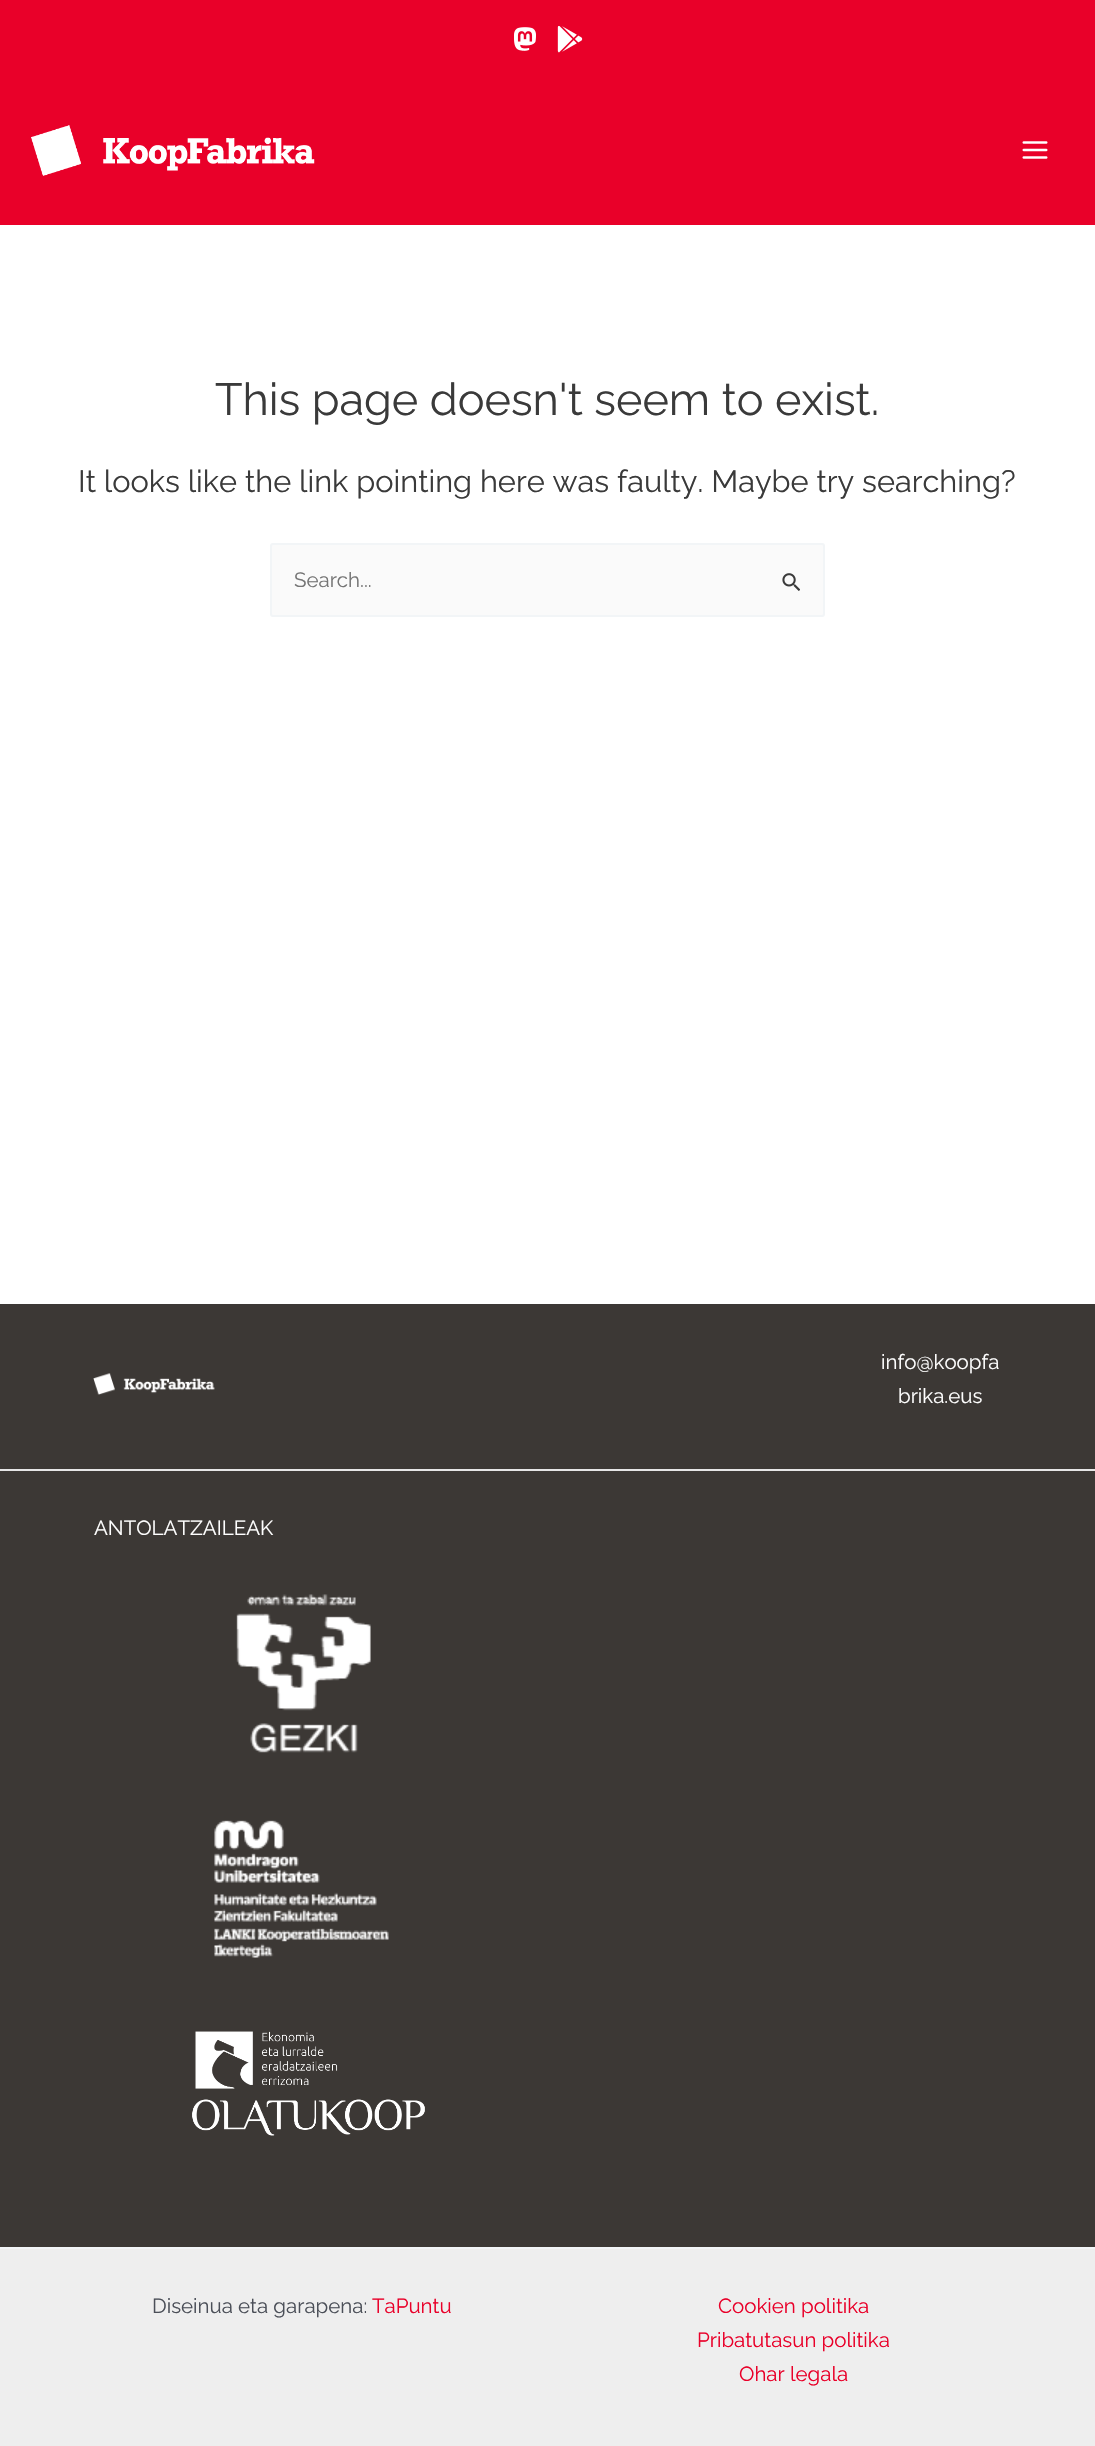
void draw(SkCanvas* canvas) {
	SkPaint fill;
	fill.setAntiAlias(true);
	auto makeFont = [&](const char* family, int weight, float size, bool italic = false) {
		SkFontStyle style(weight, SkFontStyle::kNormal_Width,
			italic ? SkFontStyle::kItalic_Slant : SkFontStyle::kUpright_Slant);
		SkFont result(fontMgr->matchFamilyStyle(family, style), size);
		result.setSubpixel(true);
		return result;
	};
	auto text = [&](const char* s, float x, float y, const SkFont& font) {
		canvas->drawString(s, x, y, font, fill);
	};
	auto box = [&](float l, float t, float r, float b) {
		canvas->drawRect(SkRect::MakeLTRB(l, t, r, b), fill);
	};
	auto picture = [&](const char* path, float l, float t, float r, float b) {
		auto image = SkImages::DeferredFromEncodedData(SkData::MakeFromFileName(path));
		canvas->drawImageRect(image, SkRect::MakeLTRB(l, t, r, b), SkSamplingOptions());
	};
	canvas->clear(0xFFFFFFFF);
	fill.setColor(0xFFE90029);
	box(0, 0, 1095, 225);
	picture("image0.png", 514, 27, 536, 51);
	picture("image1.png", 557, 26, 583, 53);
	picture("image2.png", 31, 125, 315, 176);
	picture("image3.png", 1022, 141, 1048, 159);
	fill.setColor(0xFFFAFAFA);
	canvas->drawRoundRect(SkRect::MakeLTRB(271, 544, 824, 616), 2, 2, fill);
	fill.setStyle(SkPaint::kStroke_Style);
	fill.setStrokeWidth(2);
	fill.setColor(0xFFF2F5F7);
	canvas->drawRoundRect(SkRect::MakeLTRB(271, 544, 824, 616), 2, 2, fill);
	picture("image4.png", 782, 573, 800, 591);
	fill.setStyle(SkPaint::kFill_Style);
	fill.setColor(0xFF3C3835);
	box(0, 1304, 1095, 1469);
	picture("image5.png", 93, 1373, 215, 1395);
	box(0, 1471, 1095, 2247);
	fill.setColor(0xFFE6E6E6);
	box(0, 1469, 1095, 1471);
	picture("image6.png", 236, 1594, 371, 1753);
	picture("image7.png", 214, 1820, 389, 1958);
	picture("image8.png", 192, 2031, 425, 2136);
	fill.setColor(0xFFEEEEEE);
	box(0, 2249, 1095, 2446);
	fill.setColor(0xFFF2F5F7);
	box(0, 2247, 1095, 2249);
	auto font1 = makeFont("Raleway", 400, 45);
	fill.setColor(0xFF3A3A3A);
	text("This page doesn't seem to exist.", 215, 415, font1);
	auto font2 = makeFont("Raleway", 400, 30.75f);
	text("It looks like the link pointing here was faulty. Maybe try searching?", 78, 492, font2);
	auto font3 = makeFont("Raleway", 400, 20.5f);
	fill.setColor(0xFF757575);
	text("Search...", 294, 587, font3);
	fill.setColor(0xFFFFFFFF);
	text("info@koopfa", 881, 1369, font3);
	text("brika.eus", 898, 1403, font3);
	text("ANTOLATZAILEAK", 94, 1535, font3);
	fill.setColor(0xFF4B4F58);
	text("Diseinua eta garapena:", 152, 2313, font3);
	fill.setColor(0xFFE90029);
	text("TaPuntu", 372, 2313, font3);
	text("Cookien politika", 718, 2313, font3);
	text("Pribatutasun politika", 697, 2347, font3);
	text("Ohar legala", 739, 2381, font3);
}
